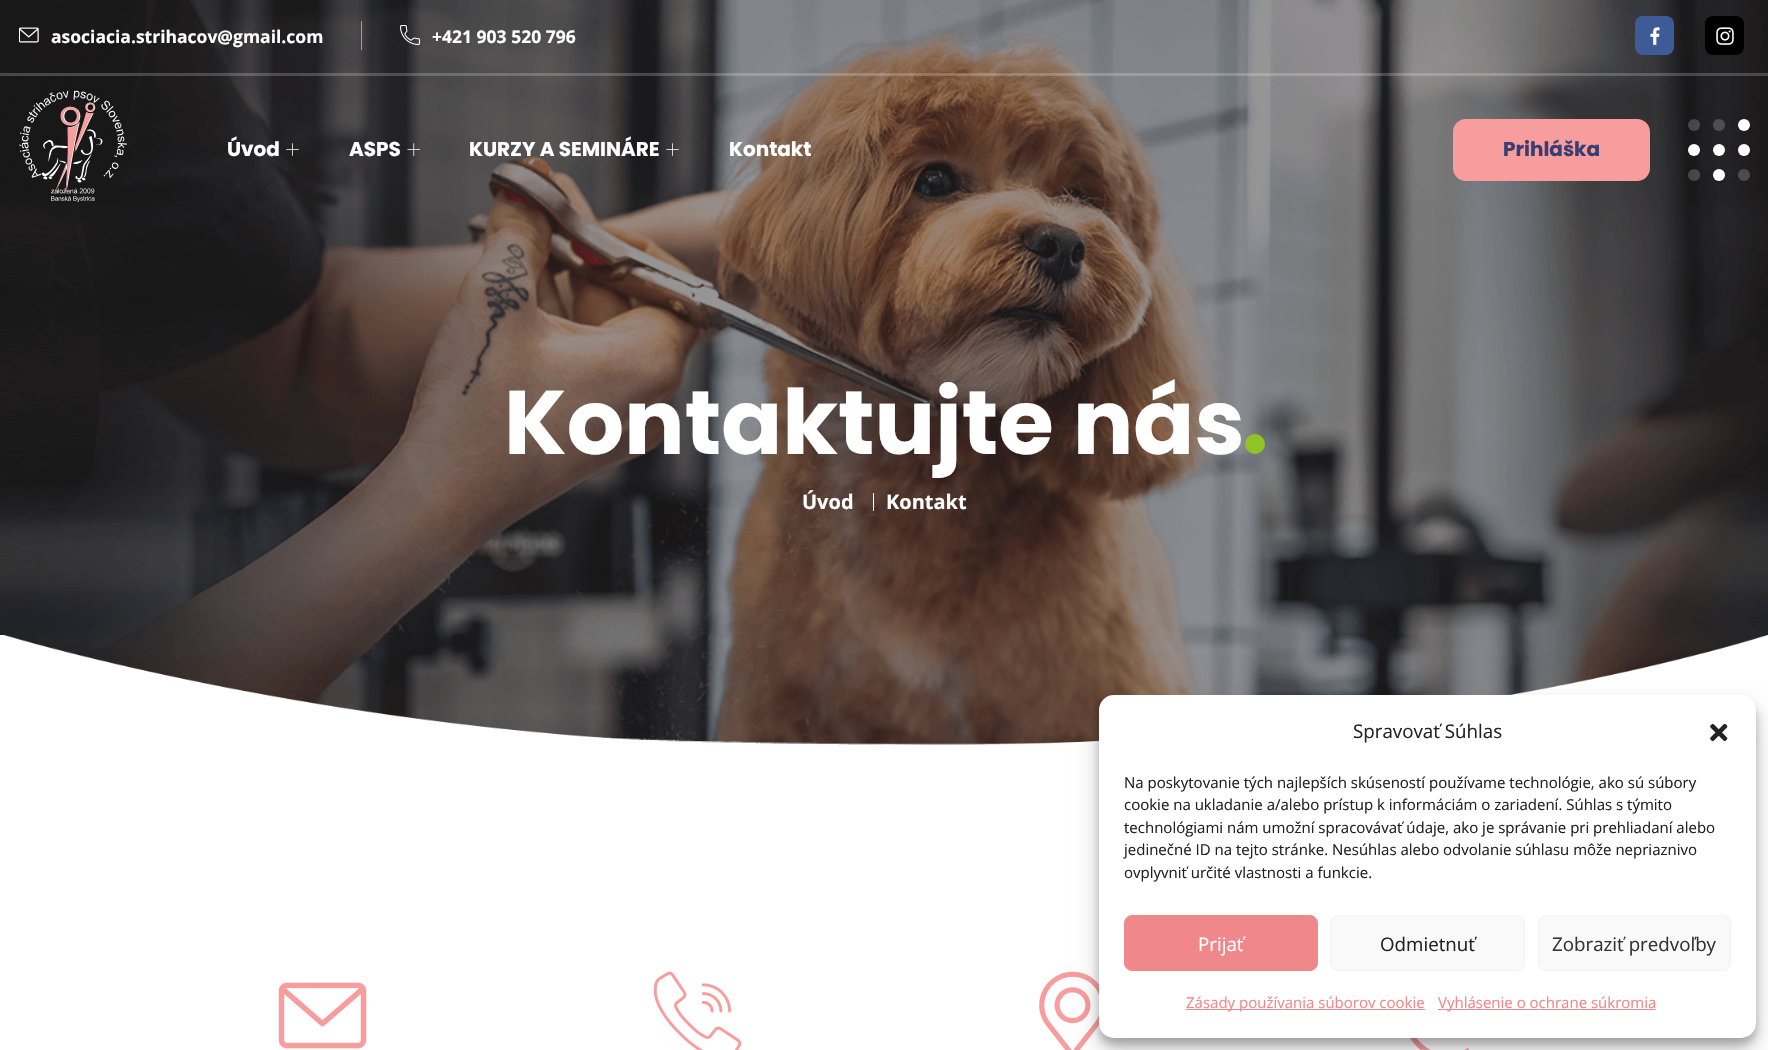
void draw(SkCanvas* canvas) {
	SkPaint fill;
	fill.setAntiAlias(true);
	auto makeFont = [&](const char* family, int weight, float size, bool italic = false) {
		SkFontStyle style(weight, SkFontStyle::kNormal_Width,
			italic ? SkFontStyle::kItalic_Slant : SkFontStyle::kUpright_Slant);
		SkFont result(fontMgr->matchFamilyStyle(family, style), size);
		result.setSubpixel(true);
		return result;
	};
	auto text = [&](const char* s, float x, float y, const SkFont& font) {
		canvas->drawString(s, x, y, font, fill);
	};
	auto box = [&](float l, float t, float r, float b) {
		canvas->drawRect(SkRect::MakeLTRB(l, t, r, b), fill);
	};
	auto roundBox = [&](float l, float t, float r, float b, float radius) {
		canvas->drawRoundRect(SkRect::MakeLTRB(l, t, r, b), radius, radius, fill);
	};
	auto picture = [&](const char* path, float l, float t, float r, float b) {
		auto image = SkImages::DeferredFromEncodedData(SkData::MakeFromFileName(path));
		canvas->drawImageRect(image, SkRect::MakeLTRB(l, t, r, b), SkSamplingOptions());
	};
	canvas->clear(0xFFFFFFFF);
	picture("image8.png", 0, 0, 1768, 745);
	fill.setColor(0x33FFFFFF);
	box(0, 73, 1768, 76);
	picture("image0.png", 19, 27, 39, 43);
	fill.setColor(0x80FFFFFF);
	box(361, 21, 362, 50);
	picture("image1.png", 400, 25, 420, 45);
	fill.setColor(0xFF3E5B98);
	roundBox(1635, 16, 1674, 55, 8);
	picture("image2.png", 1650, 27, 1660, 45);
	fill.setColor(0xFF000000);
	roundBox(1705, 16, 1744, 55, 8);
	picture("image3.png", 1716, 27, 1734, 45);
	picture("image4.png", 19, 90, 127, 202);
	picture("image5.png", 286, 143, 299, 156);
	picture("image6.png", 407, 143, 420, 156);
	picture("image7.png", 666, 143, 679, 156);
	fill.setColor(0xFFF89D9D);
	roundBox(1453, 119, 1650, 181, 13);
	fill.setColor(0x33FFFFFF);
	canvas->drawCircle(1694, 125, 6, fill);
	fill.setColor(0xFF4F4E50);
	canvas->drawCircle(1719, 125, 6, fill);
	fill.setColor(0xFFFFFFFF);
	canvas->drawCircle(1744, 125, 6, fill);
	canvas->drawCircle(1694, 150, 6, fill);
	canvas->drawCircle(1719, 150, 6, fill);
	canvas->drawCircle(1744, 150, 6, fill);
	fill.setColor(0x33FFFFFF);
	canvas->drawCircle(1694, 175, 6, fill);
	fill.setColor(0xFFFFFFFF);
	canvas->drawCircle(1719, 175, 6, fill);
	fill.setColor(0x33FFFFFF);
	canvas->drawCircle(1744, 175, 6, fill);
	fill.setColor(0xFF8FC424);
	canvas->drawCircle(1255, 444, 10, fill);
	fill.setColor(0xFFFFFFFF);
	box(873, 493, 874, 511);
	picture("image9.png", 0, 635, 1768, 745);
	picture("image10.png", 278, 982, 367, 1049);
	picture("image11.png", 653, 971, 742, 1050);
	picture("image12.png", 1039, 971, 1100, 1050);
	picture("image13.png", 1410, 1038, 1470, 1050);
	fill.setColor(0x3B000000);
	fill.setMaskFilter(SkMaskFilter::MakeBlur(kNormal_SkBlurStyle, 4));
	canvas->drawRoundRect(SkRect::MakeLTRB(1099, 703, 1756, 1045), 15, 15, fill);
	fill.setMaskFilter(nullptr);
	fill.setColor(0x30000000);
	fill.setMaskFilter(SkMaskFilter::MakeBlur(kNormal_SkBlurStyle, 12.5f));
	canvas->drawRoundRect(SkRect::MakeLTRB(1099, 708, 1756, 1050), 15, 15, fill);
	fill.setMaskFilter(nullptr);
	fill.setColor(0xFFFFFFFF);
	roundBox(1099, 695, 1756, 1038, 15);
	picture("image14.png", 1710, 723, 1728, 742);
	fill.setColor(0xFFF0888B);
	canvas->drawRoundRect(SkRect::MakeLTRB(1124.5f, 915.5f, 1317.5f, 970.5f), 7.5f, 7.5f, fill);
	fill.setStyle(SkPaint::kStroke_Style);
	fill.setStrokeWidth(1);
	canvas->drawRoundRect(SkRect::MakeLTRB(1124.5f, 915.5f, 1317.5f, 970.5f), 7.5f, 7.5f, fill);
	fill.setStyle(SkPaint::kFill_Style);
	fill.setColor(0xFFF9F9F9);
	canvas->drawRoundRect(SkRect::MakeLTRB(1330.5f, 915.5f, 1524.5f, 970.5f), 7.5f, 7.5f, fill);
	fill.setStyle(SkPaint::kStroke_Style);
	fill.setColor(0xFFF2F2F2);
	canvas->drawRoundRect(SkRect::MakeLTRB(1330.5f, 915.5f, 1524.5f, 970.5f), 7.5f, 7.5f, fill);
	fill.setStyle(SkPaint::kFill_Style);
	fill.setColor(0xFFF9F9F9);
	canvas->drawRoundRect(SkRect::MakeLTRB(1538.5f, 915.5f, 1730.5f, 970.5f), 7.5f, 7.5f, fill);
	fill.setStyle(SkPaint::kStroke_Style);
	fill.setColor(0xFFF2F2F2);
	canvas->drawRoundRect(SkRect::MakeLTRB(1538.5f, 915.5f, 1730.5f, 970.5f), 7.5f, 7.5f, fill);
	fill.setStyle(SkPaint::kFill_Style);
	fill.setColor(0xFFF0888B);
	box(1186, 1009, 1425, 1010);
	box(1438, 1009, 1656, 1010);
	auto font1 = makeFont("Open Sans", 700, 17.5f);
	fill.setColor(0xFFFFFFFF);
	text("asociacia.strihacov@gmail.com", 51, 43, font1);
	text("+421 903 520 796", 432, 43, font1);
	auto font2 = makeFont("Poppins", 700, 20);
	text("Úvod", 227, 156, font2);
	text("ASPS", 349, 156, font2);
	text("KURZY A SEMINÁRE", 469, 156, font2);
	text("Kontakt", 729, 156, font2);
	fill.setColor(0xFF393D72);
	text("Prihláška", 1503, 156, font2);
	auto font3 = makeFont("Poppins", 700, 90);
	fill.setColor(0xFFFFFFFF);
	text("Kontaktujte nás", 504, 454, font3);
	auto font4 = makeFont("Open Sans", 700, 20);
	text("Úvod", 802, 509, font4);
	text("Kontakt", 886, 509, font4);
	auto font5 = makeFont("Open Sans", 400, 18.75f);
	fill.setColor(0xFF222222);
	text("Spravovať Súhlas", 1353, 738, font5);
	auto font6 = makeFont("Open Sans", 400, 15);
	text("Na poskytovanie tých najlepších skúseností používame technológie, ako sú súbory", 1124, 788, font6);
	text("cookie na ukladanie a/alebo prístup k informáciám o zariadení. Súhlas s týmito", 1124, 810, font6);
	text("technológiami nám umožní spracovávať údaje, ako je správanie pri prehliadaní alebo", 1124, 833, font6);
	text("jedinečné ID na tejto stránke. Nesúhlas alebo odvolanie súhlasu môže nepriaznivo", 1124, 855, font6);
	text("ovplyvniť určité vlastnosti a funkcie.", 1124, 878, font6);
	fill.setColor(0xFFFFFFFF);
	text("Prijať", 1198, 951, font5);
	fill.setColor(0xFF222222);
	text("Odmietnuť", 1380, 951, font5);
	fill.setColor(0xFF333333);
	text("Zobraziť predvoľby", 1552, 951, font5);
	fill.setColor(0xFFF0888B);
	text("Zásady používania súborov cookie", 1186, 1008, font6);
	text("Vyhlásenie o ochrane súkromia", 1438, 1008, font6);
}
